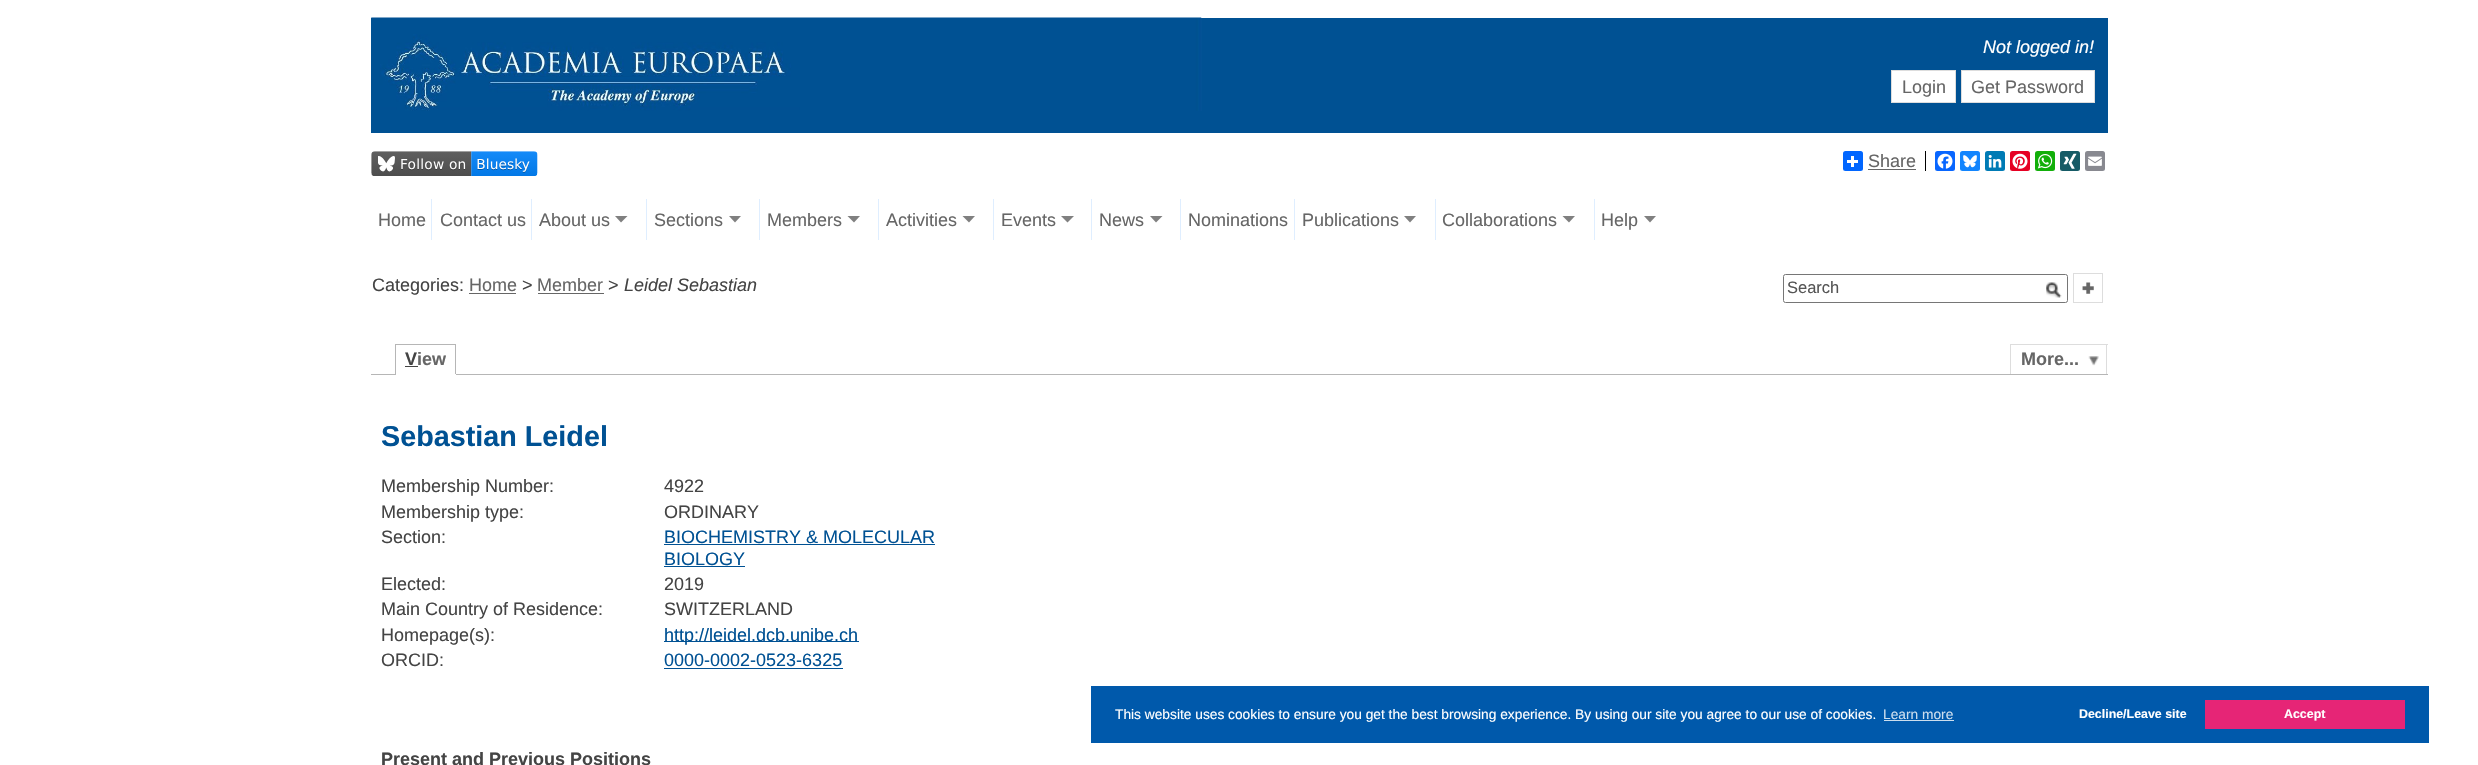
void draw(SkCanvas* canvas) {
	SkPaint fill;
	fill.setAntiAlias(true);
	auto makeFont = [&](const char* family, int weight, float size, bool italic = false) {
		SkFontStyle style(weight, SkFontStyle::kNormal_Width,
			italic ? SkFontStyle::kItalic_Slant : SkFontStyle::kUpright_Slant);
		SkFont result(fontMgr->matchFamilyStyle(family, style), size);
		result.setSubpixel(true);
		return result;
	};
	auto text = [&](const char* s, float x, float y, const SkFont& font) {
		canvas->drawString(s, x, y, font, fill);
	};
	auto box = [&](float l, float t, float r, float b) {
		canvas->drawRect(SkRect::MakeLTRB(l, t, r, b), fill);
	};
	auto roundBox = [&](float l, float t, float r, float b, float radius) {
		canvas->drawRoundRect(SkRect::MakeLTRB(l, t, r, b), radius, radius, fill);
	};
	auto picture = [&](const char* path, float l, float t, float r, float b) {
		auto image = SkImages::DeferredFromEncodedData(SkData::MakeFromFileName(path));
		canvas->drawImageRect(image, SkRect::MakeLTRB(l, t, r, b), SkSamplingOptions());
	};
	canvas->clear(0xFFFFFFFF);
	fill.setColor(0xFF005193);
	box(371, 18, 2108, 133);
	picture("image0.png", 371, 17, 1202, 111);
	fill.setColor(0xFFFFFFFF);
	canvas->drawRect(SkRect::MakeLTRB(1891.5f, 70.5f, 1955.5f, 102.5f), fill);
	fill.setStyle(SkPaint::kStroke_Style);
	fill.setStrokeWidth(1);
	fill.setColor(0xFFDDDDDD);
	canvas->drawRect(SkRect::MakeLTRB(1891.5f, 70.5f, 1955.5f, 102.5f), fill);
	fill.setStyle(SkPaint::kFill_Style);
	fill.setColor(0xFFFFFFFF);
	canvas->drawRect(SkRect::MakeLTRB(1961.5f, 70.5f, 2094.5f, 102.5f), fill);
	fill.setStyle(SkPaint::kStroke_Style);
	fill.setColor(0xFFDDDDDD);
	canvas->drawRect(SkRect::MakeLTRB(1961.5f, 70.5f, 2094.5f, 102.5f), fill);
	picture("image1.png", 371, 151, 538, 176);
	fill.setStyle(SkPaint::kFill_Style);
	fill.setColor(0xFF0166FF);
	roundBox(1843, 151, 1863, 171, 2.5f);
	fill.setColor(0xFFFFFFFF);
	box(1851, 156, 1854, 167);
	box(1847, 160, 1858, 163);
	fill.setColor(0xFF666666);
	box(1868, 169, 1916, 170);
	fill.setColor(0xFF000000);
	box(1925, 151, 1926, 171);
	fill.setColor(0xFF0866FF);
	roundBox(1935, 151, 1955, 171, 2.5f);
	picture("image2.png", 1937, 153, 1953, 169);
	fill.setColor(0xFF1285FE);
	roundBox(1960, 151, 1980, 171, 2.5f);
	picture("image3.png", 1963, 155, 1977, 168);
	fill.setColor(0xFF007BB5);
	roundBox(1985, 151, 2005, 171, 2.5f);
	picture("image4.png", 1988, 155, 2002, 168);
	fill.setColor(0xFFE60023);
	roundBox(2010, 151, 2030, 171, 2.5f);
	picture("image5.png", 2012, 153, 2028, 169);
	fill.setColor(0xFF12AF0A);
	roundBox(2035, 151, 2055, 171, 2.5f);
	picture("image6.png", 2037, 154, 2053, 169);
	fill.setColor(0xFF165B66);
	roundBox(2060, 151, 2080, 171, 2.5f);
	picture("image7.png", 2063, 153, 2077, 169);
	fill.setColor(0xFF888990);
	roundBox(2085, 151, 2105, 171, 2.5f);
	picture("image8.png", 2088, 156, 2102, 166);
	fill.setColor(0xFFDFEEFF);
	box(431, 199, 432, 240);
	box(531, 199, 532, 240);
	box(646, 199, 647, 240);
	fill.setColor(0xFF808080);
	canvas->drawPath(SkPathBuilder().moveTo(615, 216).lineTo(627.5f, 216).lineTo(621, 222.5f).close().detach(), fill);
	fill.setColor(0xFFDFEEFF);
	box(759, 199, 760, 240);
	fill.setColor(0xFF808080);
	canvas->drawPath(SkPathBuilder().moveTo(729, 216).lineTo(741, 216).lineTo(735, 222.5f).close().detach(), fill);
	fill.setColor(0xFFDFEEFF);
	box(878, 199, 879, 240);
	fill.setColor(0xFF808080);
	canvas->drawPath(SkPathBuilder().moveTo(847.5f, 216).lineTo(860, 216).lineTo(854, 222.5f).close().detach(), fill);
	fill.setColor(0xFFDFEEFF);
	box(993, 199, 994, 240);
	fill.setColor(0xFF808080);
	canvas->drawPath(SkPathBuilder().moveTo(962.5f, 216).lineTo(975, 216).lineTo(969, 222.5f).close().detach(), fill);
	fill.setColor(0xFFDFEEFF);
	box(1091, 199, 1092, 240);
	fill.setColor(0xFF808080);
	canvas->drawPath(SkPathBuilder().moveTo(1061, 216).lineTo(1074, 216).lineTo(1067.5f, 222.5f).close().detach(), fill);
	fill.setColor(0xFFDFEEFF);
	box(1180, 199, 1181, 240);
	fill.setColor(0xFF808080);
	canvas->drawPath(SkPathBuilder().moveTo(1150, 216).lineTo(1162.5f, 216).lineTo(1156, 222.5f).close().detach(), fill);
	fill.setColor(0xFFDFEEFF);
	box(1294, 199, 1295, 240);
	box(1435, 199, 1436, 240);
	fill.setColor(0xFF808080);
	canvas->drawPath(SkPathBuilder().moveTo(1404, 216).lineTo(1416, 216).lineTo(1410, 222.5f).close().detach(), fill);
	fill.setColor(0xFFDFEEFF);
	box(1594, 199, 1595, 240);
	fill.setColor(0xFF808080);
	canvas->drawPath(SkPathBuilder().moveTo(1562.5f, 216).lineTo(1575, 216).lineTo(1569, 222.5f).close().detach(), fill);
	canvas->drawPath(SkPathBuilder().moveTo(1644, 216).lineTo(1656, 216).lineTo(1650, 222.5f).close().detach(), fill);
	fill.setColor(0xFF666666);
	box(469, 293, 516, 294);
	box(538, 293, 604, 294);
	fill.setStyle(SkPaint::kStroke_Style);
	fill.setColor(0xFF767676);
	canvas->drawRoundRect(SkRect::MakeLTRB(1783.5f, 274.5f, 2067.5f, 302.5f), 2, 2, fill);
	picture("image9.png", 2046, 282, 2062, 298);
	fill.setColor(0xFFDDDDDD);
	canvas->drawRect(SkRect::MakeLTRB(2073.5f, 273.5f, 2102.5f, 302.5f), fill);
	picture("image10.png", 2082, 282, 2094, 294);
	fill.setStyle(SkPaint::kFill_Style);
	fill.setColor(0xFFB6B6B6);
	box(395, 344, 456, 345);
	box(371, 374, 2108, 375);
	box(455, 344, 456, 375);
	fill.setColor(0xFFFFFFFF);
	box(395, 374, 456, 375);
	fill.setColor(0xFFB6B6B6);
	box(395, 344, 396, 375);
	fill.setColor(0xFF444444);
	box(405, 366, 418, 367);
	picture("image11.png", 2088, 356, 2099, 366);
	fill.setColor(0xFFDDDDDD);
	box(2010, 344, 2108, 345);
	box(2106, 344, 2107, 374);
	box(2010, 344, 2011, 374);
	fill.setColor(0xFF005193);
	box(664, 544, 935, 545);
	box(664, 566, 745, 567);
	box(664, 641, 859, 642);
	box(664, 668, 843, 669);
	fill.setColor(0xFF0059AB);
	box(1091, 686, 2429, 743);
	fill.setColor(0xFFCCDEEE);
	box(1884, 720, 1954, 721);
	fill.setColor(0xFFE62576);
	box(2205, 700, 2405, 729);
	auto font1 = makeFont("Liberation Sans", 400, 18, true);
	fill.setColor(0xFFFFFFFF);
	text("Not logged in!", 1983, 53, font1);
	auto font2 = makeFont("Liberation Sans", 400, 18);
	fill.setColor(0xFF666666);
	text("Login", 1902, 93, font2);
	text("Get Password", 1971, 93, font2);
	text("Share", 1868, 167, font2);
	text("Home", 378, 226, font2);
	text("Contact us", 440, 226, font2);
	text("About us", 539, 226, font2);
	text("Sections", 654, 226, font2);
	text("Members", 767, 226, font2);
	text("Activities", 886, 226, font2);
	text("Events", 1001, 226, font2);
	text("News", 1099, 226, font2);
	text("Nominations", 1188, 226, font2);
	text("Publications", 1302, 226, font2);
	text("Collaborations", 1442, 226, font2);
	text("Help", 1601, 226, font2);
	fill.setColor(0xFF444444);
	text("Categories:", 372, 291, font2);
	fill.setColor(0xFF666666);
	text("Home", 469, 291, font2);
	fill.setColor(0xFF444444);
	text(">", 522, 291, font2);
	fill.setColor(0xFF666666);
	text("Member", 537, 291, font2);
	fill.setColor(0xFF444444);
	text(">", 608, 291, font2);
	text("Leidel Sebastian", 624, 291, font1);
	auto font3 = makeFont("Liberation Sans", 400, 16.5f);
	fill.setColor(0xFF555555);
	text("Search", 1787, 293, font3);
	auto font4 = makeFont("Liberation Sans", 700, 18);
	fill.setColor(0xFF444444);
	text("V", 405, 365, font4);
	fill.setColor(0xFF666666);
	text("iew", 417, 365, font4);
	text("More...", 2021, 365, font4);
	auto font5 = makeFont("Liberation Sans", 700, 28.75f);
	fill.setColor(0xFF005193);
	text("Sebastian Leidel", 381, 446, font5);
	fill.setColor(0xFF444444);
	text("Membership Number:", 381, 492, font2);
	text("4922", 664, 492, font2);
	text("Membership type:", 381, 518, font2);
	text("ORDINARY", 664, 518, font2);
	text("Section:", 381, 543, font2);
	fill.setColor(0xFF005193);
	text("BIOCHEMISTRY & MOLECULAR", 664, 543, font2);
	text("BIOLOGY", 664, 565, font2);
	fill.setColor(0xFF444444);
	text("Elected:", 381, 590, font2);
	text("2019", 664, 590, font2);
	text("Main Country of Residence:", 381, 615, font2);
	text("SWITZERLAND", 664, 615, font2);
	text("Homepage(s):", 381, 641, font2);
	fill.setColor(0xFF005193);
	text("http://leidel.dcb.unibe.ch", 664, 641, font2);
	fill.setColor(0xFF444444);
	text("ORCID:", 381, 666, font2);
	fill.setColor(0xFF005193);
	text("0000-0002-0523-6325", 664, 666, font2);
	fill.setColor(0xFF444444);
	text("Present and Previous Positions", 381, 765, font4);
	auto font6 = makeFont("Liberation Sans", 400, 13.75f);
	fill.setColor(0xFFFFFFFF);
	text("This website uses cookies to ensure you get the best browsing experience. By using our site you agree to our use of cookies.", 1115, 719, font6);
	fill.setColor(0xFFCCDEEE);
	text("Learn more", 1883, 719, font6);
	auto font7 = makeFont("Liberation Sans", 700, 12.4f);
	fill.setColor(0xFFFFFFFF);
	text("Decline/Leave site", 2079, 718, font7);
	text("Accept", 2284, 718, font7);
}
